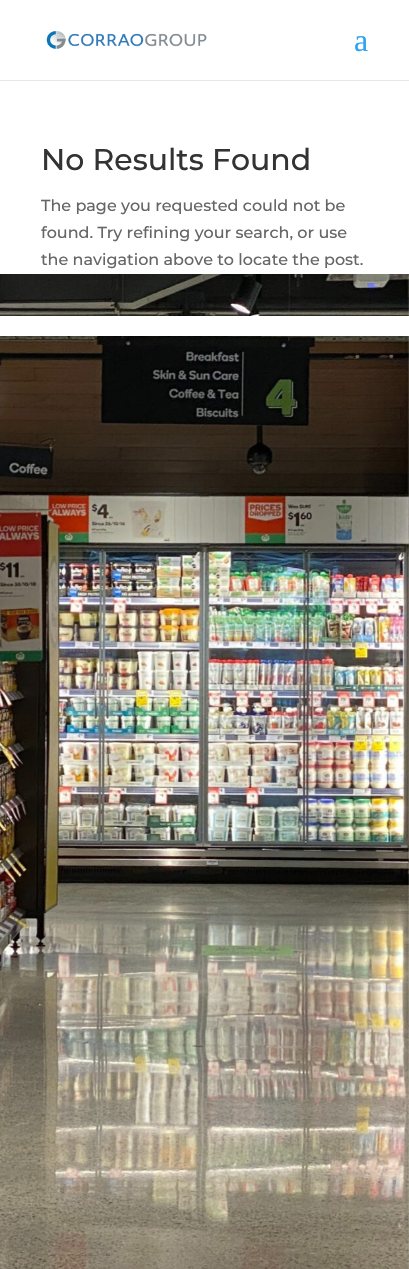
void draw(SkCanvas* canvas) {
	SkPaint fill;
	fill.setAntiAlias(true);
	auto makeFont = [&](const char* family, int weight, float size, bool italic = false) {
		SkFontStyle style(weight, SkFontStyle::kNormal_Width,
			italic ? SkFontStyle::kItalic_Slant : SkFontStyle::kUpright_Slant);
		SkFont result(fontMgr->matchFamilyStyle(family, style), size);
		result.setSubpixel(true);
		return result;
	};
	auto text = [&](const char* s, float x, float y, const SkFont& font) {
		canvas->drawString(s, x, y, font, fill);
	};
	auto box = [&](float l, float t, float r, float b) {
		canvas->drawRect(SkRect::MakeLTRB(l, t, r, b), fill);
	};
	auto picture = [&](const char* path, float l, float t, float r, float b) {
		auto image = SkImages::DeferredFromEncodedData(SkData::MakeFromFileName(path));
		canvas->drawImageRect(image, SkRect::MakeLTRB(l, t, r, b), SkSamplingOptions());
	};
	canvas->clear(0xFFFFFFFF);
	picture("image0.png", 0, 274, 409, 1269);
	fill.setColor(0xFFE6E6E6);
	box(0, 80, 409, 81);
	picture("image1.png", 46, 31, 207, 49);
	fill.setColor(0xFFFFFFFF);
	box(0, 316, 409, 336);
	auto font1 = makeFont("Liberation Serif", 400, 32);
	fill.setColor(0xFF2EA3F2);
	text("a", 354, 51, font1);
	auto font2 = makeFont("Montserrat", 500, 30);
	fill.setColor(0xFF333333);
	text("No Results Found", 41, 170, font2);
	auto font3 = makeFont("Montserrat", 500, 16);
	fill.setColor(0xFF666666);
	text("The page you requested could not be", 41, 211, font3);
	text("found. Try refining your search, or use", 41, 238, font3);
	text("the navigation above to locate the post.", 41, 265, font3);
}
